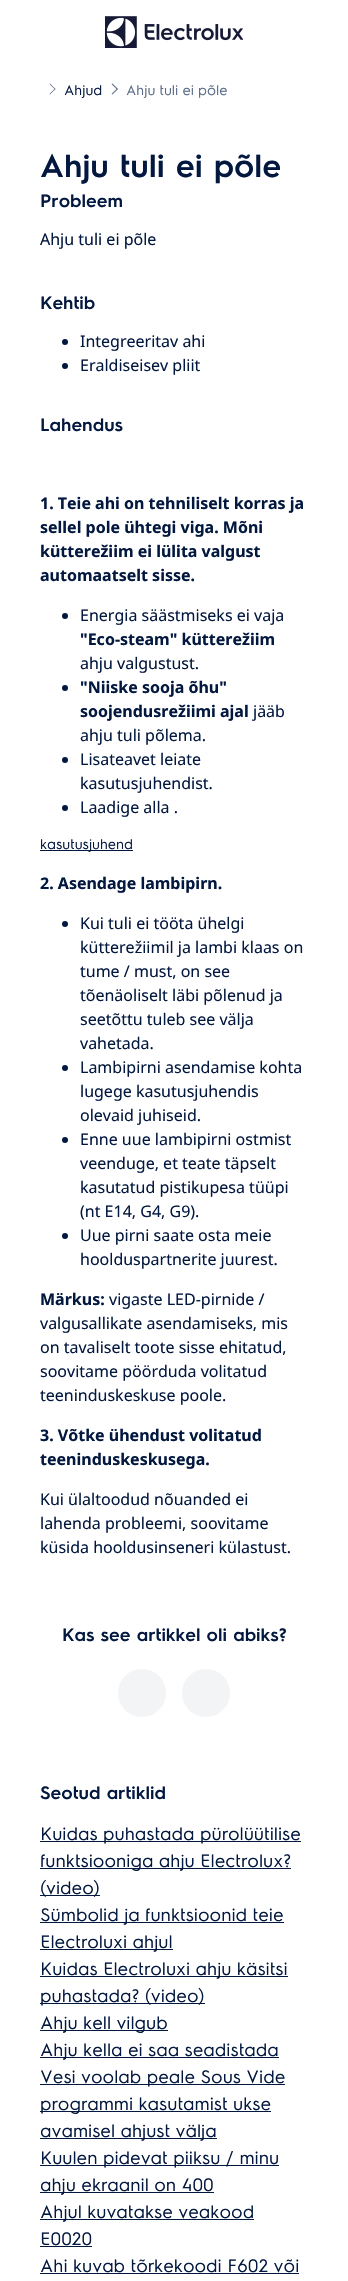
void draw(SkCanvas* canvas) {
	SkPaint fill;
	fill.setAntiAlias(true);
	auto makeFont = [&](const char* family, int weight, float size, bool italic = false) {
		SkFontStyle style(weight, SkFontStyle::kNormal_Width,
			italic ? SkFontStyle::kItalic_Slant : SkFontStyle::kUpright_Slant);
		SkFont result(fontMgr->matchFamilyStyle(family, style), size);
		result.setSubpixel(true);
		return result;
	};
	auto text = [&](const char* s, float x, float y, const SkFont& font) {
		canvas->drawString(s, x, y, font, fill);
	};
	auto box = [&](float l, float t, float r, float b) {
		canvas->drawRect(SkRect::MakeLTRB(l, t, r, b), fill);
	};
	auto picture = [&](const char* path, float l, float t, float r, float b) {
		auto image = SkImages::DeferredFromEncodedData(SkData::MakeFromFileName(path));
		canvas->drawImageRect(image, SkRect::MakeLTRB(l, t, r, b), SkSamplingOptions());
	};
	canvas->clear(0xFFFFFFFF);
	picture("image0.png", 105, 16, 243, 48);
	fill.setColor(0xFF596B86);
	canvas->drawPath(SkPathBuilder().moveTo(50, 83.5f).lineTo(55.5f, 89).lineTo(55, 89.5f).lineTo(49.5f, 84).close().detach(), fill);
	canvas->drawPath(SkPathBuilder().moveTo(55, 88.5f).lineTo(55.5f, 89).lineTo(50, 94.5f).lineTo(49.5f, 94).close().detach(), fill);
	canvas->drawPath(SkPathBuilder().moveTo(112.5f, 83.5f).lineTo(118, 89).lineTo(117, 89.5f).lineTo(111.5f, 84).close().detach(), fill);
	canvas->drawPath(SkPathBuilder().moveTo(117, 88.5f).lineTo(118, 89).lineTo(112.5f, 94.5f).lineTo(111.5f, 94).close().detach(), fill);
	fill.setColor(0xFF03183F);
	canvas->drawCircle(65, 342, 3, fill);
	canvas->drawCircle(65, 366, 3, fill);
	canvas->drawCircle(65, 616, 3, fill);
	canvas->drawCircle(65, 688, 3, fill);
	canvas->drawCircle(65, 760, 3, fill);
	canvas->drawCircle(65, 808, 3, fill);
	box(40, 850, 133, 851);
	canvas->drawCircle(65, 924, 3, fill);
	canvas->drawCircle(65, 1068, 3, fill);
	canvas->drawCircle(65, 1140, 3, fill);
	canvas->drawCircle(65, 1236, 3, fill);
	fill.setColor(0xFFF3F4F6);
	canvas->drawCircle(142, 1693, 24, fill);
	canvas->drawCircle(206, 1693, 24, fill);
	fill.setColor(0xFF03183F);
	box(40, 1841, 301, 1842);
	box(40, 1868, 291, 1869);
	box(40, 1895, 100, 1896);
	box(40, 1922, 284, 1923);
	box(40, 1949, 173, 1950);
	box(40, 1976, 288, 1977);
	box(40, 2003, 205, 2004);
	box(40, 2030, 168, 2031);
	box(40, 2057, 279, 2058);
	box(40, 2084, 285, 2085);
	box(40, 2111, 271, 2112);
	box(40, 2138, 217, 2139);
	box(40, 2165, 279, 2166);
	box(40, 2192, 214, 2193);
	box(40, 2219, 254, 2220);
	box(40, 2246, 92, 2247);
	box(40, 2273, 299, 2274);
	auto font1 = makeFont("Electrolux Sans", 400, 14);
	text("Ahjud", 64, 95, font1);
	fill.setColor(0xFF596B86);
	text("Ahju tuli ei põle", 126, 95, font1);
	auto font2 = makeFont("Electrolux Sans", 600, 32);
	fill.setColor(0xFF03183F);
	text("Ahju tuli ei põle", 40, 177, font2);
	auto font3 = makeFont("Electrolux Sans", 600, 18);
	text("Probleem", 40, 207, font3);
	auto font4 = makeFont("Noto Sans", 400, 16);
	text("Ahju tuli ei põle", 40, 245, font4);
	text("Kehtib", 40, 309, font3);
	text("Integreeritav ahi", 80, 347, font4);
	text("Eraldiseisev pliit", 80, 371, font4);
	text("Lahendus", 40, 431, font3);
	auto font5 = makeFont("Noto Sans", 700, 16);
	text("1. Teie ahi on tehniliselt korras ja", 40, 509, font5);
	text("sellel pole ühtegi viga. Mõni", 40, 533, font5);
	text("kütterežiim ei lülita valgust", 40, 557, font5);
	text("automaatselt sisse.", 40, 581, font5);
	text("Energia säästmiseks ei vaja", 80, 621, font4);
	text("\"Eco-steam\" kütterežiim", 80, 645, font5);
	text("ahju valgustust.", 80, 669, font4);
	text("\"Niiske sooja õhu\"", 80, 693, font5);
	text("soojendusrežiimi ajal", 80, 717, font5);
	text("jääb", 253, 717, font4);
	text("ahju tuli põlema.", 80, 741, font4);
	text("Lisateavet leiate", 80, 765, font4);
	text("kasutusjuhendist.", 80, 789, font4);
	text("Laadige alla .", 80, 813, font4);
	text("kasutusjuhend", 40, 849, font1);
	text("2. Asendage lambipirn.", 40, 889, font5);
	text("Kui tuli ei tööta ühelgi", 80, 929, font4);
	text("kütterežiimil ja lambi klaas on", 80, 953, font4);
	text("tume / must, on see", 80, 977, font4);
	text("tõenäoliselt läbi põlenud ja", 80, 1001, font4);
	text("seetõttu tuleb see välja", 80, 1025, font4);
	text("vahetada.", 80, 1049, font4);
	text("Lambipirni asendamise kohta", 80, 1073, font4);
	text("lugege kasutusjuhendis", 80, 1097, font4);
	text("olevaid juhiseid.", 80, 1121, font4);
	text("Enne uue lambipirni ostmist", 80, 1145, font4);
	text("veenduge, et teate täpselt", 80, 1169, font4);
	text("kasutatud pistikupesa tüüpi", 80, 1193, font4);
	text("(nt E14, G4, G9).", 80, 1217, font4);
	text("Uue pirni saate osta meie", 80, 1241, font4);
	text("hoolduspartnerite juurest.", 80, 1265, font4);
	text("Märkus:", 40, 1305, font5);
	text("vigaste LED-pirnide /", 109, 1305, font4);
	text("valgusallikate asendamiseks, mis", 40, 1329, font4);
	text("on tavaliselt toote sisse ehitatud,", 40, 1353, font4);
	text("soovitame pöörduda volitatud", 40, 1377, font4);
	text("teeninduskeskuse poole.", 40, 1401, font4);
	text("3. Võtke ühendust volitatud", 40, 1441, font5);
	text("teeninduskeskusega.", 40, 1465, font5);
	text("Kui ülaltoodud nõuanded ei", 40, 1505, font4);
	text("lahenda probleemi, soovitame", 40, 1529, font4);
	text("küsida hooldusinseneri külastust.", 40, 1553, font4);
	text("Kas see artikkel oli abiks?", 62, 1641, font3);
	text("Seotud artiklid", 40, 1799, font3);
	auto font6 = makeFont("Electrolux Sans", 400, 18);
	text("Kuidas puhastada pürolüütilise", 40, 1840, font6);
	text("funktsiooniga ahju Electrolux?", 40, 1867, font6);
	text("(video)", 40, 1894, font6);
	text("Sümbolid ja funktsioonid teie", 40, 1921, font6);
	text("Electroluxi ahjul", 40, 1948, font6);
	text("Kuidas Electroluxi ahju käsitsi", 40, 1975, font6);
	text("puhastada? (video)", 40, 2002, font6);
	text("Ahju kell vilgub", 40, 2029, font6);
	text("Ahju kella ei saa seadistada", 40, 2056, font6);
	text("Vesi voolab peale Sous Vide", 40, 2083, font6);
	text("programmi kasutamist ukse", 40, 2110, font6);
	text("avamisel ahjust välja", 40, 2137, font6);
	text("Kuulen pidevat piiksu / minu", 40, 2164, font6);
	text("ahju ekraanil on 400", 40, 2191, font6);
	text("Ahjul kuvatakse veakood", 40, 2218, font6);
	text("E0020", 40, 2245, font6);
	text("Ahi kuvab tõrkekoodi F602 või", 40, 2272, font6);
}
